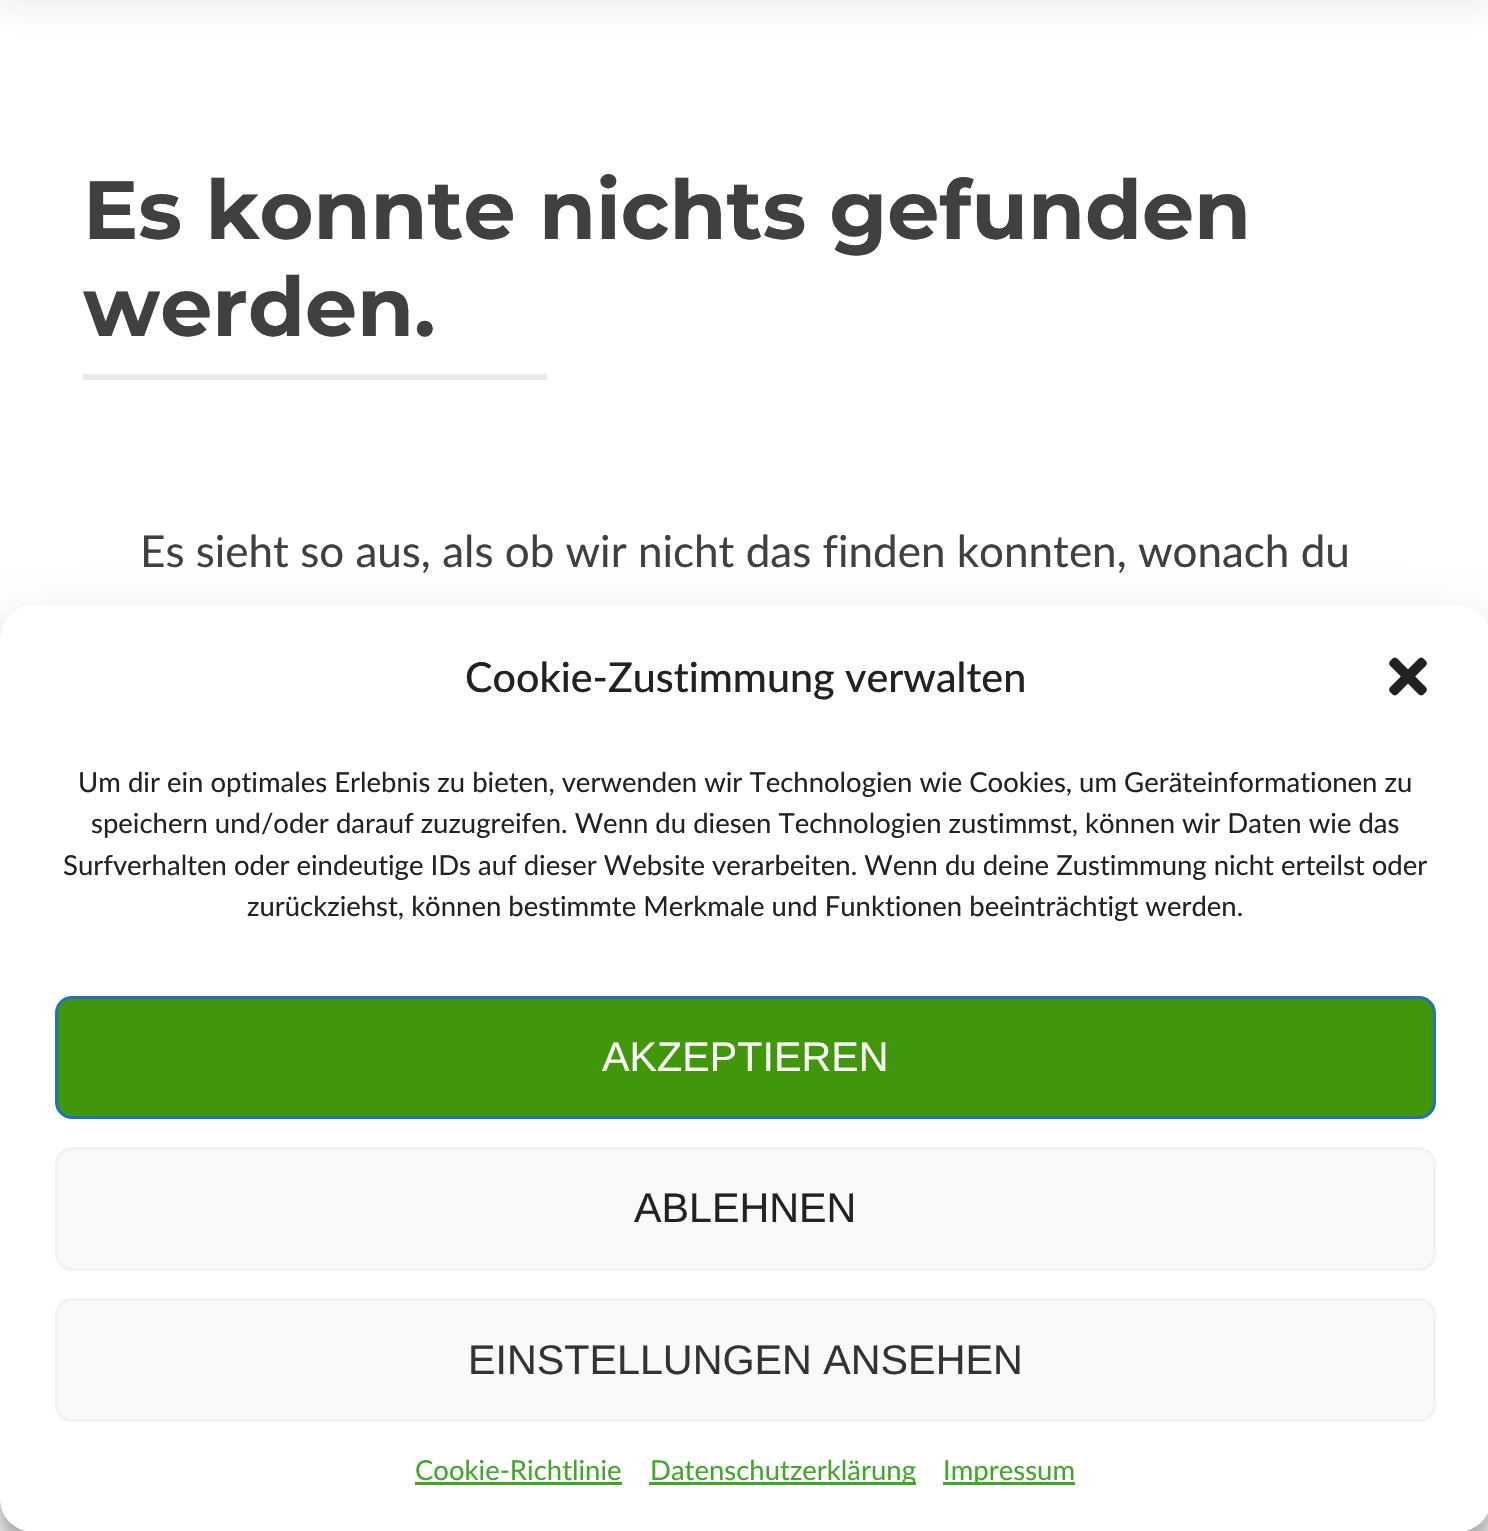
void draw(SkCanvas* canvas) {
	SkPaint fill;
	fill.setAntiAlias(true);
	auto makeFont = [&](const char* family, int weight, float size, bool italic = false) {
		SkFontStyle style(weight, SkFontStyle::kNormal_Width,
			italic ? SkFontStyle::kItalic_Slant : SkFontStyle::kUpright_Slant);
		SkFont result(fontMgr->matchFamilyStyle(family, style), size);
		result.setSubpixel(true);
		return result;
	};
	auto text = [&](const char* s, float x, float y, const SkFont& font) {
		canvas->drawString(s, x, y, font, fill);
	};
	auto box = [&](float l, float t, float r, float b) {
		canvas->drawRect(SkRect::MakeLTRB(l, t, r, b), fill);
	};
	auto roundBox = [&](float l, float t, float r, float b, float radius) {
		canvas->drawRoundRect(SkRect::MakeLTRB(l, t, r, b), radius, radius, fill);
	};
	auto picture = [&](const char* path, float l, float t, float r, float b) {
		auto image = SkImages::DeferredFromEncodedData(SkData::MakeFromFileName(path));
		canvas->drawImageRect(image, SkRect::MakeLTRB(l, t, r, b), SkSamplingOptions());
	};
	canvas->clear(0xFFFFFFFF);
	fill.setColor(0x14323232);
	fill.setMaskFilter(SkMaskFilter::MakeBlur(kNormal_SkBlurStyle, 15));
	canvas->drawRect(SkRect::MakeLTRB(0, -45, 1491, 11), fill);
	fill.setMaskFilter(nullptr);
	fill.setColor(0xFFE9E9E9);
	box(83, 374, 547, 380);
	fill.setColor(0x3B000000);
	fill.setMaskFilter(SkMaskFilter::MakeBlur(kNormal_SkBlurStyle, 8));
	canvas->drawRoundRect(SkRect::MakeLTRB(0, 622, 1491, 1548), 33, 33, fill);
	fill.setMaskFilter(nullptr);
	fill.setColor(0x30000000);
	fill.setMaskFilter(SkMaskFilter::MakeBlur(kNormal_SkBlurStyle, 27.5f));
	canvas->drawRoundRect(SkRect::MakeLTRB(0, 633, 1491, 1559), 33, 33, fill);
	fill.setMaskFilter(nullptr);
	fill.setColor(0xFFFFFFFF);
	roundBox(0, 605, 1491, 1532, 33);
	picture("image0.png", 1389, 657, 1427, 696);
	fill.setColor(0xFF42960A);
	canvas->drawRoundRect(SkRect::MakeLTRB(56.5f, 997.5f, 1434.5f, 1117.5f), 15.5f, 15.5f, fill);
	fill.setStyle(SkPaint::kStroke_Style);
	fill.setStrokeWidth(3);
	fill.setColor(0xFF1E73BE);
	canvas->drawRoundRect(SkRect::MakeLTRB(56.5f, 997.5f, 1434.5f, 1117.5f), 15.5f, 15.5f, fill);
	fill.setStyle(SkPaint::kFill_Style);
	fill.setColor(0xFFF9F9F9);
	canvas->drawRoundRect(SkRect::MakeLTRB(56.5f, 1148.5f, 1434.5f, 1269.5f), 15.5f, 15.5f, fill);
	fill.setStyle(SkPaint::kStroke_Style);
	fill.setColor(0xFFF2F2F2);
	canvas->drawRoundRect(SkRect::MakeLTRB(56.5f, 1148.5f, 1434.5f, 1269.5f), 15.5f, 15.5f, fill);
	fill.setStyle(SkPaint::kFill_Style);
	fill.setColor(0xFFF9F9F9);
	canvas->drawRoundRect(SkRect::MakeLTRB(56.5f, 1299.5f, 1434.5f, 1420.5f), 15.5f, 15.5f, fill);
	fill.setStyle(SkPaint::kStroke_Style);
	fill.setColor(0xFFF2F2F2);
	canvas->drawRoundRect(SkRect::MakeLTRB(56.5f, 1299.5f, 1434.5f, 1420.5f), 15.5f, 15.5f, fill);
	fill.setStyle(SkPaint::kFill_Style);
	fill.setColor(0xFF42A62A);
	box(415, 1482, 622, 1485);
	box(649, 1482, 916, 1485);
	box(943, 1482, 1075, 1485);
	auto font1 = makeFont("Montserrat", 700, 82.5f);
	fill.setColor(0xFF404040);
	text("Es konnte nichts gefunden", 83, 239, font1);
	text("werden.", 83, 336, font1);
	auto font2 = makeFont("Lato", 400, 44);
	text("Es sieht so aus, als ob wir nicht das finden konnten, wonach du", 140, 567, font2);
	auto font3 = makeFont("Lato", 500, 41.25f);
	fill.setColor(0xFF222222);
	text("Cookie-Zustimmung verwalten", 465, 692, font3);
	auto font4 = makeFont("Lato", 400, 27.5f);
	text("Um dir ein optimales Erlebnis zu bieten, verwenden wir Technologien wie Cookies, um Geräteinformationen zu", 78, 792, font4);
	text("speichern und/oder darauf zuzugreifen. Wenn du diesen Technologien zustimmst, können wir Daten wie das", 91, 833, font4);
	text("Surfverhalten oder eindeutige IDs auf dieser Website verarbeiten. Wenn du deine Zustimmung nicht erteilst oder", 63, 875, font4);
	text("zurückziehst, können bestimmte Merkmale und Funktionen beeinträchtigt werden.", 247, 916, font4);
	auto font5 = makeFont("Liberation Sans", 400, 41.25f);
	fill.setColor(0xFFFFFFFF);
	text("AKZEPTIEREN", 602, 1071, font5);
	fill.setColor(0xFF222222);
	text("ABLEHNEN", 634, 1222, font5);
	fill.setColor(0xFF333333);
	text("EINSTELLUNGEN ANSEHEN", 468, 1374, font5);
	fill.setColor(0xFF42A62A);
	text("Cookie-Richtlinie", 415, 1480, font4);
	text("Datenschutzerklärung", 650, 1480, font4);
	text("Impressum", 943, 1480, font4);
}
